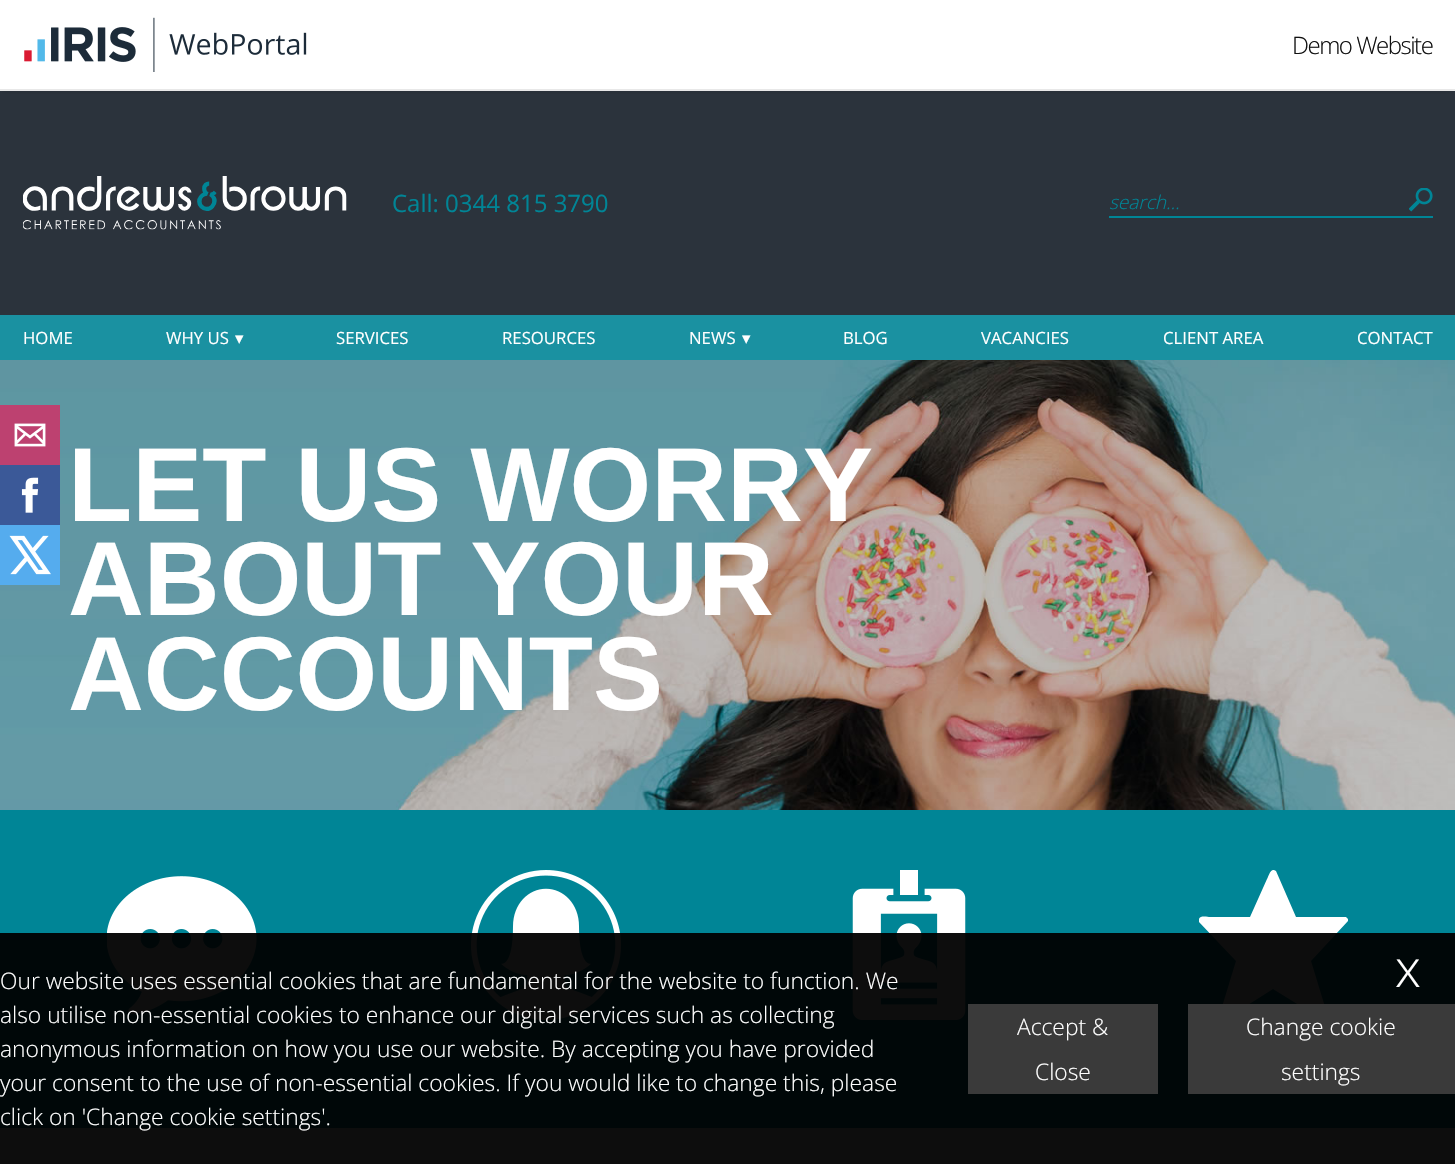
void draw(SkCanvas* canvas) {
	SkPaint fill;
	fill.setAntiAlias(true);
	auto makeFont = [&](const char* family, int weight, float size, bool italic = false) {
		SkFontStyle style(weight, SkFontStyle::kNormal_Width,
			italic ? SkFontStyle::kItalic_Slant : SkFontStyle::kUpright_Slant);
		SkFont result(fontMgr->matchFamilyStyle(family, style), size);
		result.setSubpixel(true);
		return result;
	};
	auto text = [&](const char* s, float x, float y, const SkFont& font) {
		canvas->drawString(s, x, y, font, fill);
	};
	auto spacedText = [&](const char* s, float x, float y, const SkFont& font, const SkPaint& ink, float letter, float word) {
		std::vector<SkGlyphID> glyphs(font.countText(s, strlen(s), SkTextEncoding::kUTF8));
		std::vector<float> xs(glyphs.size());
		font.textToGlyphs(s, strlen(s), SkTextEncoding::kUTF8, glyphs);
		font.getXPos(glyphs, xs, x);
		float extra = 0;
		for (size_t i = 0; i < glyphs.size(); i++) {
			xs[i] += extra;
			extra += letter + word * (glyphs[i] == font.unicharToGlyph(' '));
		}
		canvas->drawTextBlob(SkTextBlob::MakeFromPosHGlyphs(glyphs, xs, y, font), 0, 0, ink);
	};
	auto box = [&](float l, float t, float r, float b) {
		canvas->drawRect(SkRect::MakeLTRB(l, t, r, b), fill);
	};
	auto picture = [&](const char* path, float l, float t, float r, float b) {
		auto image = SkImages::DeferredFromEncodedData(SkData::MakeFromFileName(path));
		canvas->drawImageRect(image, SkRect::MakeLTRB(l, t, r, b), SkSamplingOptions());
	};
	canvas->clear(0xFFFFFFFF);
	fill.setColor(0xFF2B333C);
	box(0, 91, 1455, 315);
	canvas->save();
	canvas->clipRect(SkRect::MakeLTRB(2, 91, 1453, 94));
	fill.setColor(0x26000000);
	fill.setMaskFilter(SkMaskFilter::MakeBlur(kNormal_SkBlurStyle, 4));
	canvas->drawRect(SkRect::MakeLTRB(3, 6, 1452, 90), fill);
	fill.setMaskFilter(nullptr);
	canvas->restore();
	fill.setColor(0xFFE8E8E8);
	box(0, 89, 1455, 91);
	picture("image0.png", 24, 17, 307, 72);
	picture("image1.png", 23, 176, 347, 230);
	fill.setColor(0xFF008596);
	box(1109, 216, 1433, 218);
	picture("image2.png", 1409, 188, 1433, 212);
	fill.setColor(0xFF1A91A1);
	box(0, 315, 1455, 360);
	picture("image6.png", 0, 360, 1455, 810);
	fill.setColor(0xFFBD4170);
	box(0, 405, 60, 465);
	picture("image3.png", 14, 423, 46, 447);
	fill.setColor(0xFF3B5998);
	box(0, 465, 60, 525);
	picture("image4.png", 21, 477, 39, 513);
	fill.setColor(0xFF55ACEE);
	box(0, 525, 60, 585);
	picture("image5.png", 9, 535, 51, 575);
	fill.setColor(0xFF008596);
	box(0, 810, 1455, 1128);
	picture("image7.png", 107, 876, 257, 1014);
	picture("image8.png", 471, 870, 621, 1020);
	picture("image9.png", 852, 870, 966, 1020);
	fill.setColor(0xFFFFFFFF);
	canvas->drawPath(SkPathBuilder().moveTo(1348, 919).lineTo(1346, 917).lineTo(1296, 917).lineTo(1276, 871).lineTo(1274, 870).cubicTo(1270, 869, 1268, 878, 1267, 879).lineTo(1250, 917).lineTo(1210, 917).cubicTo(1208, 917, 1200, 915, 1199, 919).lineTo(1199, 922).lineTo(1236, 961).lineTo(1222, 1007).cubicTo(1222, 1008, 1217, 1017, 1221, 1020).lineTo(1224, 1020).lineTo(1273, 989).lineTo(1323, 1020).lineTo(1326, 1020).cubicTo(1330, 1017, 1325, 1008, 1325, 1007).lineTo(1311, 961).lineTo(1348, 921).close().detach(), fill);
	fill.setColor(0xF2000000);
	box(0, 933, 1455, 1164);
	fill.setColor(0xFF3A3A3A);
	box(968, 1004, 1158, 1094);
	box(1188, 1004, 1455, 1094);
	auto font1 = makeFont("Open Sans", 300, 24);
	fill.setColor(0xFF111111);
	spacedText("Demo Website", 1292, 54, font1, fill, -1.5f, 0);
	auto font2 = makeFont("Open Sans", 400, 24);
	fill.setColor(0xFF008596);
	text("Call: 0344 815 3790", 392, 212, font2);
	auto font3 = makeFont("Open Sans", 300, 19, true);
	text("search…", 1109, 209, font3);
	auto font4 = makeFont("Open Sans", 400, 16.75f);
	fill.setColor(0xFFFFFFFF);
	text("HOME", 23, 344, font4);
	text("WHY US", 166, 344, font4);
	auto font5 = makeFont("DejaVu Sans", 400, 16.75f);
	text("▾", 235, 344, font5);
	text("SERVICES", 336, 344, font4);
	text("RESOURCES", 502, 344, font4);
	text("NEWS", 689, 344, font4);
	text("▾", 742, 344, font5);
	text("BLOG", 843, 344, font4);
	text("VACANCIES", 981, 344, font4);
	text("CLIENT AREA", 1163, 344, font4);
	text("CONTACT", 1357, 344, font4);
	auto font6 = makeFont("Liberation Sans", 700, 105);
	text("LET US WORRY", 68, 521, font6);
	text("ABOUT YOUR", 68, 615, font6);
	text("ACCOUNTS", 68, 710, font6);
	auto font7 = makeFont("Open Sans", 300, 22.8f);
	text("Our website uses essential cookies that are fundamental for the website to function. We", 0, 989, font7);
	text("also utilise non-essential cookies to enhance our digital services such as collecting", 0, 1023, font7);
	text("anonymous information on how you use our website. By accepting you have provided", 0, 1057, font7);
	text("your consent to the use of non-essential cookies. If you would like to change this, please", 0, 1091, font7);
	text("click on 'Change cookie settings'.", 0, 1125, font7);
	text("Accept &", 1017, 1035, font7);
	text("Close", 1035, 1080, font7);
	text("Change cookie", 1246, 1035, font7);
	text("settings", 1281, 1080, font7);
	auto font8 = makeFont("Open Sans", 300, 52);
	text("x", 1395, 987, font8);
}
